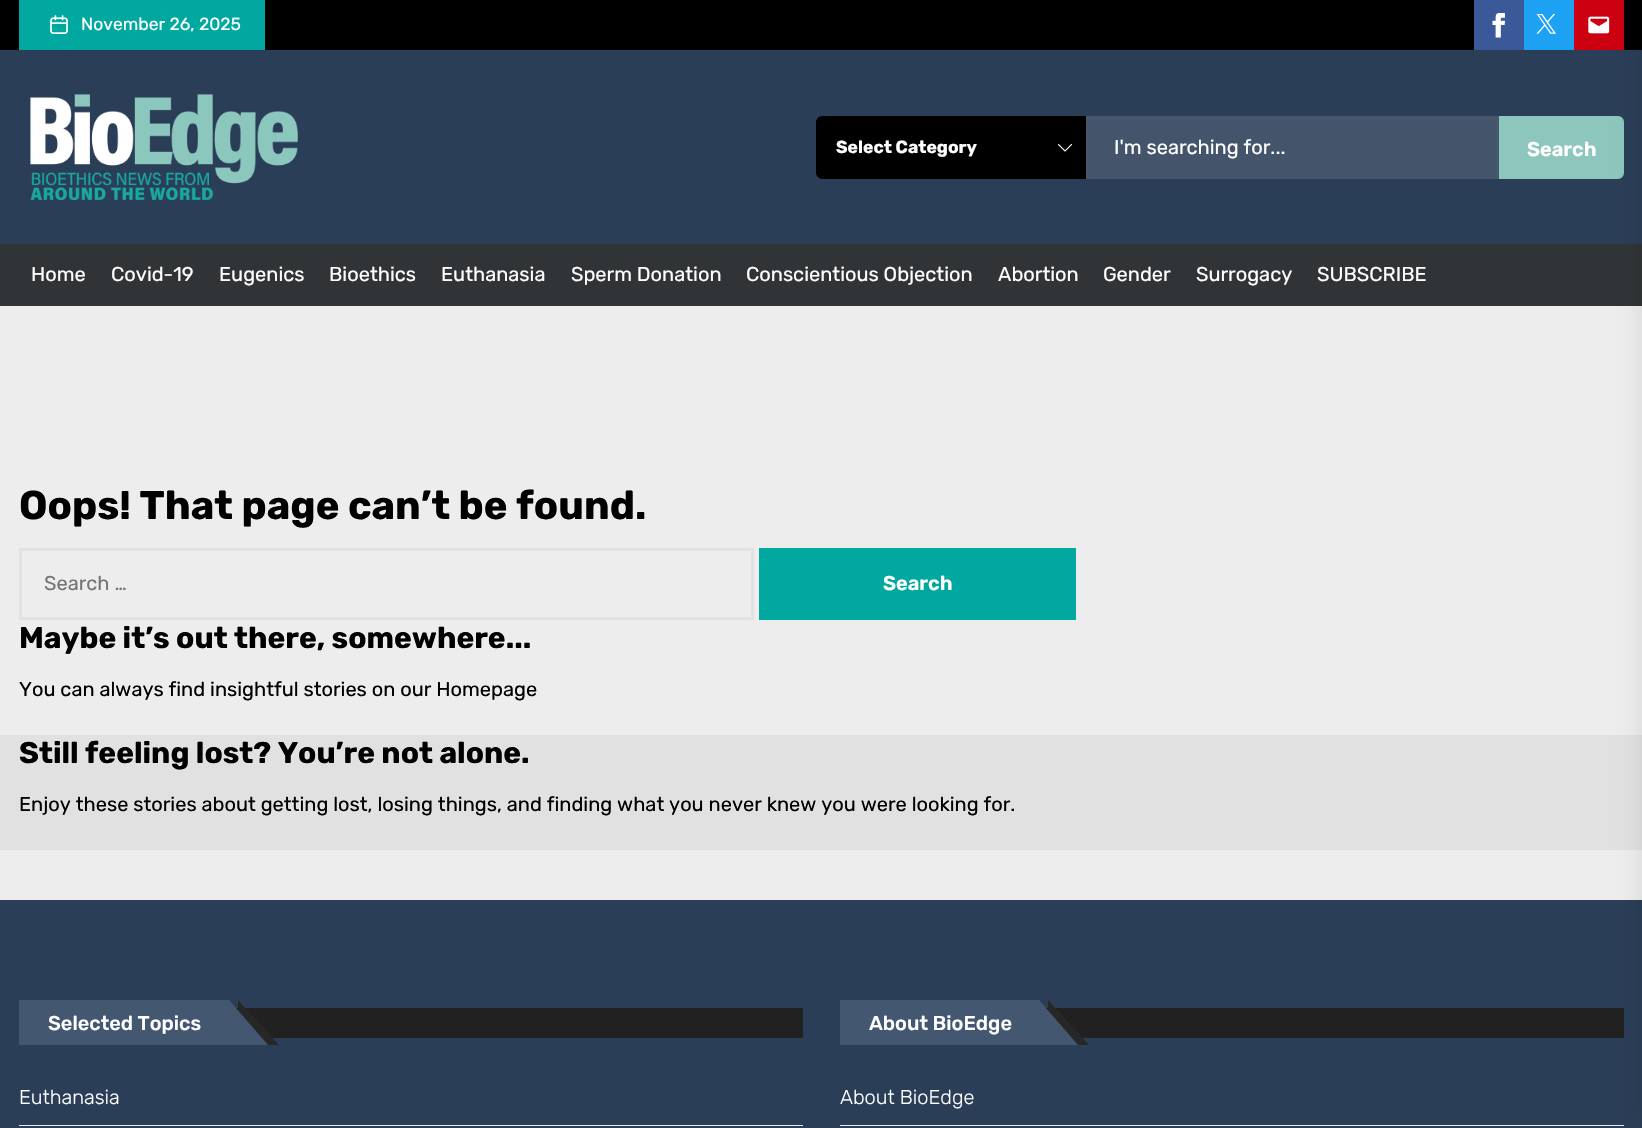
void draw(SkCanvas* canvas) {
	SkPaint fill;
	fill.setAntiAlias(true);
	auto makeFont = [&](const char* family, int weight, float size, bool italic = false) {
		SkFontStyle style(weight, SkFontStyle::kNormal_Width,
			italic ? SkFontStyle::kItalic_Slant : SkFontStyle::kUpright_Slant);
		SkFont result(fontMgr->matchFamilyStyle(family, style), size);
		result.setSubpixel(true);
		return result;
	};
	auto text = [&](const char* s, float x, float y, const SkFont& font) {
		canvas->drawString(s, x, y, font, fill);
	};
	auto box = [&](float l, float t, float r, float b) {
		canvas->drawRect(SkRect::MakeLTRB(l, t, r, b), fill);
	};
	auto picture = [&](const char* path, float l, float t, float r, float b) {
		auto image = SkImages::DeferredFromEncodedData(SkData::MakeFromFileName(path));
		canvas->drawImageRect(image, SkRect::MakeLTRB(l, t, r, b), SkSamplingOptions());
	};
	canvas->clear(0xFFEDEDED);
	fill.setColor(0xFF000000);
	box(0, 0, 1642, 50);
	fill.setColor(0xFF00A8A0);
	box(19, 0, 265, 50);
	picture("image0.png", 50, 15, 68, 34);
	fill.setColor(0xFF3B5998);
	box(1474, 0, 1524, 50);
	picture("image1.png", 1492, 13, 1505, 38);
	fill.setColor(0xFF1DA1F2);
	box(1524, 0, 1574, 50);
	picture("image2.png", 1536, 14, 1556, 34);
	fill.setColor(0xFFCC0010);
	box(1574, 0, 1624, 50);
	picture("image3.png", 1588, 16, 1610, 34);
	fill.setColor(0xFF2B3E57);
	box(0, 50, 1642, 244);
	fill.setColor(0xFF8DC6BD);
	canvas->drawPath(SkPathBuilder().moveTo(1500.5f, 117.5f).lineTo(1618, 117.5f).cubicTo(1620.5f, 117.5f, 1622.5f, 119.5f, 1622.5f, 122).lineTo(1622.5f, 173).cubicTo(1622.5f, 175.5f, 1620.5f, 177.5f, 1618, 177.5f).lineTo(1500.5f, 177.5f).close().detach(), fill);
	fill.setStyle(SkPaint::kStroke_Style);
	fill.setStrokeWidth(3);
	canvas->drawPath(SkPathBuilder().moveTo(1500.5f, 117.5f).lineTo(1618, 117.5f).cubicTo(1620.5f, 117.5f, 1622.5f, 119.5f, 1622.5f, 122).lineTo(1622.5f, 173).cubicTo(1622.5f, 175.5f, 1620.5f, 177.5f, 1618, 177.5f).lineTo(1500.5f, 177.5f).close().detach(), fill);
	fill.setStyle(SkPaint::kFill_Style);
	fill.setColor(0xFF313436);
	box(0, 244, 1642, 306);
	fill.setColor(0xFFE1E1E1);
	box(0, 735, 1642, 850);
	fill.setColor(0xFF2B3E57);
	box(0, 900, 1642, 1128);
	fill.setColor(0xFF212121);
	box(1046, 1008, 1624, 1038);
	fill.setColor(0xFFE9ECEF);
	box(840, 1125, 1624, 1126);
	fill.setColor(0x1A000000);
	fill.setMaskFilter(SkMaskFilter::MakeBlur(kNormal_SkBlurStyle, 12.5f));
	canvas->drawRect(SkRect::MakeLTRB(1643, 0, 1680, 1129), fill);
	fill.setMaskFilter(nullptr);
	picture("image4.png", 30, 94, 298, 201);
	fill.setColor(0xFF000000);
	canvas->drawPath(SkPathBuilder().moveTo(822, 116.5f).lineTo(1085.5f, 116.5f).lineTo(1085.5f, 178.5f).lineTo(822, 178.5f).cubicTo(819, 178.5f, 816.5f, 176, 816.5f, 173).lineTo(816.5f, 122).cubicTo(816.5f, 119, 819, 116.5f, 822, 116.5f).close().detach(), fill);
	fill.setStyle(SkPaint::kStroke_Style);
	fill.setStrokeWidth(1);
	canvas->drawPath(SkPathBuilder().moveTo(822, 116.5f).lineTo(1085.5f, 116.5f).lineTo(1085.5f, 178.5f).lineTo(822, 178.5f).cubicTo(819, 178.5f, 816.5f, 176, 816.5f, 173).lineTo(816.5f, 122).cubicTo(816.5f, 119, 819, 116.5f, 822, 116.5f).close().detach(), fill);
	picture("image5.png", 1057, 144, 1073, 152);
	fill.setStyle(SkPaint::kFill_Style);
	fill.setColor(0xFF44546B);
	canvas->drawRect(SkRect::MakeLTRB(1087.5f, 117.5f, 1497.5f, 177.5f), fill);
	fill.setStyle(SkPaint::kStroke_Style);
	fill.setStrokeWidth(3);
	fill.setColor(0xFF46566C);
	canvas->drawRect(SkRect::MakeLTRB(1087.5f, 117.5f, 1497.5f, 177.5f), fill);
	fill.setColor(0xFFE1E1E3);
	canvas->drawRect(SkRect::MakeLTRB(20.5f, 549.5f, 752.5f, 618.5f), fill);
	fill.setStyle(SkPaint::kFill_Style);
	fill.setColor(0xFF00A8A0);
	box(759, 548, 1076, 620);
	fill.setColor(0xFF435870);
	box(19, 1000, 229, 1045);
	fill.setColor(0xFF212121);
	box(236, 1008, 803, 1038);
	fill.setColor(0xFF272727);
	canvas->drawPath(SkPathBuilder().moveTo(238, 1045).lineTo(238, 1000).lineTo(279, 1045).close().detach(), fill);
	fill.setColor(0xFF435870);
	canvas->drawPath(SkPathBuilder().moveTo(229, 1045).lineTo(229, 1000).lineTo(268, 1045).close().detach(), fill);
	fill.setColor(0xFFE9ECEF);
	box(19, 1125, 803, 1126);
	fill.setColor(0xFF435870);
	box(840, 1000, 1039, 1045);
	fill.setColor(0xFF272727);
	canvas->drawPath(SkPathBuilder().moveTo(1048, 1045).lineTo(1048, 1000).lineTo(1089, 1045).close().detach(), fill);
	fill.setColor(0xFF435870);
	canvas->drawPath(SkPathBuilder().moveTo(1039, 1045).lineTo(1039, 1000).lineTo(1078, 1045).close().detach(), fill);
	auto font1 = makeFont("Rubik", 400, 17.5f);
	fill.setColor(0xFFFFFFFF);
	text("November 26, 2025", 81, 30, font1);
	auto font2 = makeFont("Rubik", 700, 17.5f);
	text("Select Category", 836, 153, font2);
	auto font3 = makeFont("Rubik", 400, 20);
	text("I'm searching for...", 1114, 154, font3);
	auto font4 = makeFont("Rubik", 600, 20);
	text("Search", 1527, 156, font4);
	text("Home", 31, 281, font3);
	text("Covid-19", 111, 281, font3);
	text("Eugenics", 219, 281, font3);
	text("Bioethics", 329, 281, font3);
	text("Euthanasia", 441, 281, font3);
	text("Sperm Donation", 571, 281, font3);
	text("Conscientious Objection", 746, 281, font3);
	text("Abortion", 998, 281, font3);
	text("Gender", 1103, 281, font3);
	text("Surrogacy", 1196, 281, font3);
	text("SUBSCRIBE", 1317, 281, font3);
	auto font5 = makeFont("Rubik", 700, 40);
	fill.setColor(0xFF000000);
	text("Oops! That page can’t be found.", 19, 519, font5);
	fill.setColor(0xFF757575);
	text("Search …", 44, 590, font3);
	fill.setColor(0xFFFFFFFF);
	text("Search", 883, 590, font4);
	auto font6 = makeFont("Rubik", 700, 30);
	fill.setColor(0xFF000000);
	text("Maybe it’s out there, somewhere...", 19, 648, font6);
	text("You can always find insightful stories on our Homepage", 19, 696, font3);
	text("Still feeling lost? You’re not alone.", 19, 763, font6);
	text("Enjoy these stories about getting lost, losing things, and finding what you never knew you were looking for.", 19, 811, font3);
	auto font7 = makeFont("Rubik", 500, 20);
	fill.setColor(0xFFFFFFFF);
	text("Selected Topics", 48, 1030, font7);
	auto font8 = makeFont("Rubik", 300, 20);
	text("Euthanasia", 19, 1104, font8);
	text("About BioEdge", 869, 1030, font7);
	text("About BioEdge", 840, 1104, font8);
}
